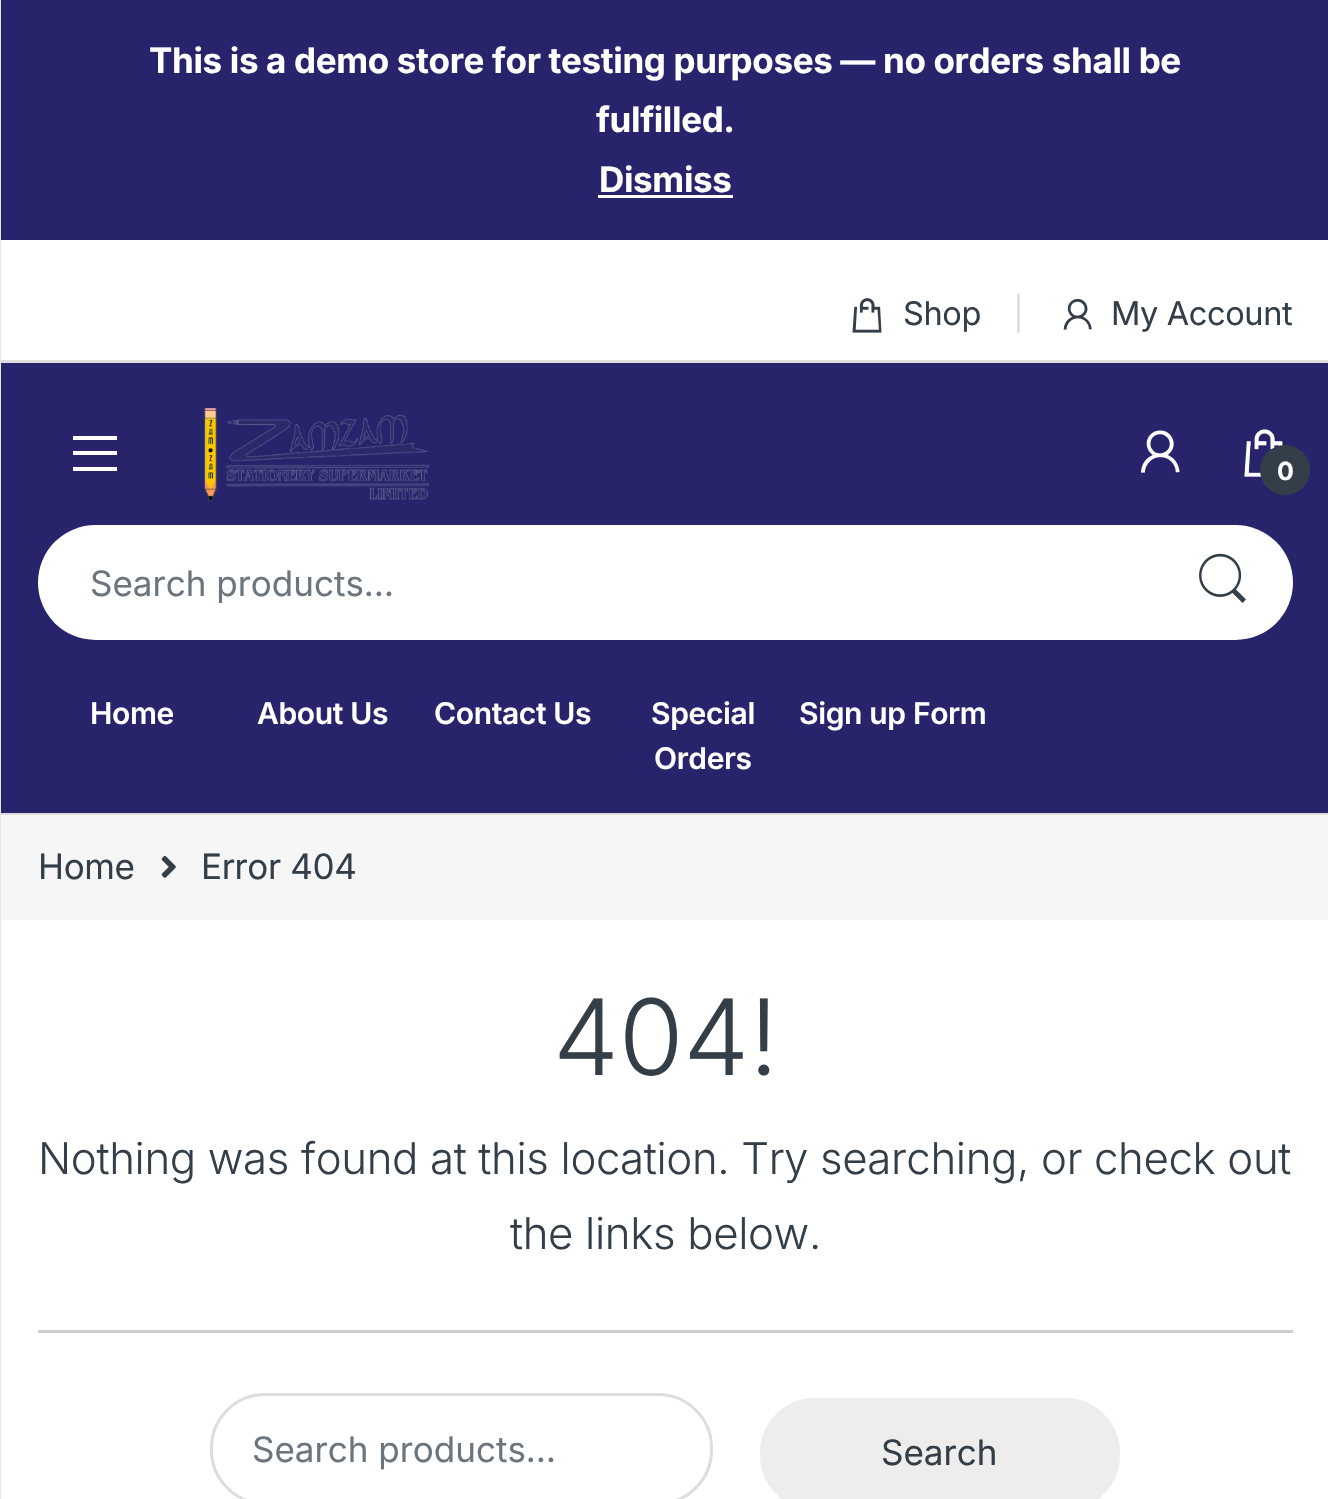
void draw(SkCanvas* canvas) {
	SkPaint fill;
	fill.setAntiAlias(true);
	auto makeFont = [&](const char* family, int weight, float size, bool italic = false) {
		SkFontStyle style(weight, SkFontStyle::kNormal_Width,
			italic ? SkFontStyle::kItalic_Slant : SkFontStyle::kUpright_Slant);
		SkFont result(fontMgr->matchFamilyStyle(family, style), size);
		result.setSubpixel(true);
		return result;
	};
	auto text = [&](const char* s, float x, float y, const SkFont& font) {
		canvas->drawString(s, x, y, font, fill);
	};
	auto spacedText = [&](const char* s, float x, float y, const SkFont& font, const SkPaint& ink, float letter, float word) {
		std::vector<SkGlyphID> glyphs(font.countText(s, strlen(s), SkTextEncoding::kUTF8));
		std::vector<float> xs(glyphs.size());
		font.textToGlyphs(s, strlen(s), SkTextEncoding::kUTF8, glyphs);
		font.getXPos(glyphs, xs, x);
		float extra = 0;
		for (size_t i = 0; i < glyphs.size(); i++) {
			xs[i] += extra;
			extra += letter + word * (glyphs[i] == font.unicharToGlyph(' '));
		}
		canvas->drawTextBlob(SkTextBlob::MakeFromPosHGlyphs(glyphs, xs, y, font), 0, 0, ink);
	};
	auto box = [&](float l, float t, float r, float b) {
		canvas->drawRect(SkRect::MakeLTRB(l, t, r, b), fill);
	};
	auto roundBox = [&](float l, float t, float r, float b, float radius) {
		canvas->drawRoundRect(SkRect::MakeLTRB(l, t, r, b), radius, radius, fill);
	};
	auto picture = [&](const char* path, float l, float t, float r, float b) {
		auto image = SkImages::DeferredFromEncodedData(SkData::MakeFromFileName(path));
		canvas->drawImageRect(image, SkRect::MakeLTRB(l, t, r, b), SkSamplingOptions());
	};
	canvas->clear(0xFFFFFFFF);
	fill.setColor(0xFF27246B);
	box(1, 0, 1328, 240);
	fill.setColor(0xFFFFFFFF);
	box(598, 195, 733, 198);
	fill.setColor(0xFFDDDDDD);
	box(0, 360, 1328, 363);
	picture("image0.png", 852, 298, 882, 333);
	picture("image1.png", 1063, 299, 1092, 330);
	box(0, 813, 1328, 815);
	fill.setColor(0xFF27246B);
	box(1, 363, 1328, 813);
	fill.setColor(0xFFE3E9EF);
	box(0, 0, 1, 1499);
	fill.setColor(0xFFFFFFFF);
	canvas->drawPath(SkPathBuilder().moveTo(73, 471).lineTo(73, 467).lineTo(117, 467).lineTo(117, 471).close().moveTo(73, 451).lineTo(117, 451).lineTo(117, 455).lineTo(73, 455).close().moveTo(73, 436).lineTo(117, 436).lineTo(117, 440).lineTo(73, 440).close().detach(), fill);
	picture("image2.png", 204, 408, 429, 502);
	picture("image3.png", 1141, 430, 1180, 473);
	picture("image4.png", 1244, 429, 1283, 477);
	fill.setColor(0xFF333E48);
	canvas->drawCircle(1285, 470, 25, fill);
	fill.setColor(0xFFFFFFFF);
	roundBox(38, 525, 1293, 640, 57.5f);
	picture("image5.png", 1199, 553, 1246, 603);
	fill.setColor(0xFFF7F6F6);
	box(1, 815, 1328, 920);
	picture("image6.png", 161, 856, 176, 878);
	fill.setColor(0xFFCCCFD1);
	box(38, 1330, 1293, 1333);
	fill.setStyle(SkPaint::kStroke_Style);
	fill.setStrokeWidth(3);
	fill.setColor(0xFFDDDDDD);
	canvas->drawRoundRect(SkRect::MakeLTRB(211.5f, 1394.5f, 711.5f, 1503.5f), 53.5f, 53.5f, fill);
	fill.setStyle(SkPaint::kFill_Style);
	fill.setColor(0xFFEFECEC);
	canvas->drawRoundRect(SkRect::MakeLTRB(761.5f, 1399.5f, 1118.5f, 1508.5f), 53.5f, 53.5f, fill);
	fill.setStyle(SkPaint::kStroke_Style);
	canvas->drawRoundRect(SkRect::MakeLTRB(761.5f, 1399.5f, 1118.5f, 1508.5f), 53.5f, 53.5f, fill);
	auto font1 = makeFont("Inter", 700, 35);
	fill.setStyle(SkPaint::kFill_Style);
	fill.setColor(0xFFFFFFFF);
	spacedText("This is a demo store for testing purposes — no orders shall be", 149, 73, font1, fill, -0.35f, 0);
	spacedText("fulfilled.", 596, 132, font1, fill, -0.35f, 0);
	spacedText("Dismiss", 599, 192, font1, fill, -0.35f, 0);
	auto font2 = makeFont("Inter", 400, 32.5f);
	fill.setColor(0xFF333E48);
	spacedText("Shop", 903, 325, font2, fill, -0.35f, 0);
	fill.setColor(0xFFDDDDDD);
	spacedText("|", 1013, 325, font2, fill, -0.35f, 0);
	fill.setColor(0xFF333E48);
	spacedText("My Account", 1111, 325, font2, fill, -0.35f, 0);
	auto font3 = makeFont("Inter", 700, 25);
	fill.setColor(0xFFFFFFFF);
	spacedText("0", 1277, 480, font3, fill, -0.35f, 0);
	canvas->save();
	canvas->clipRect(SkRect::MakeLTRB(90, 560, 1065, 603));
	auto font4 = makeFont("Inter", 400, 35);
	fill.setColor(0xFF6C757D);
	text("Search products…", 90, 596, font4);
	canvas->restore();
	auto font5 = makeFont("Inter", 600, 30);
	fill.setColor(0xFFFFFFFF);
	spacedText("Home", 90, 724, font5, fill, -0.35f, 0);
	spacedText("About Us", 257, 724, font5, fill, -0.35f, 0);
	spacedText("Contact Us", 434, 724, font5, fill, -0.35f, 0);
	spacedText("Special", 651, 724, font5, fill, -0.35f, 0);
	spacedText("Orders", 654, 769, font5, fill, -0.35f, 0);
	spacedText("Sign up Form", 799, 724, font5, fill, -0.35f, 0);
	fill.setColor(0xFF333E48);
	spacedText("Home", 38, 879, font4, fill, -0.35f, 0);
	spacedText("Error 404", 201, 879, font4, fill, -0.35f, 0);
	auto font6 = makeFont("Inter", 300, 105);
	spacedText("404!", 553, 1075, font6, fill, -0.35f, 0);
	auto font7 = makeFont("Inter", 300, 43.75f);
	spacedText("Nothing was found at this location. Try searching, or check out", 38, 1174, font7, fill, -0.35f, 0);
	spacedText("the links below.", 510, 1249, font7, fill, -0.35f, 0);
	fill.setColor(0xFF6C757D);
	text("Search products…", 252, 1462, font4);
	fill.setColor(0xFF333E48);
	text("Search", 881, 1465, font4);
}
